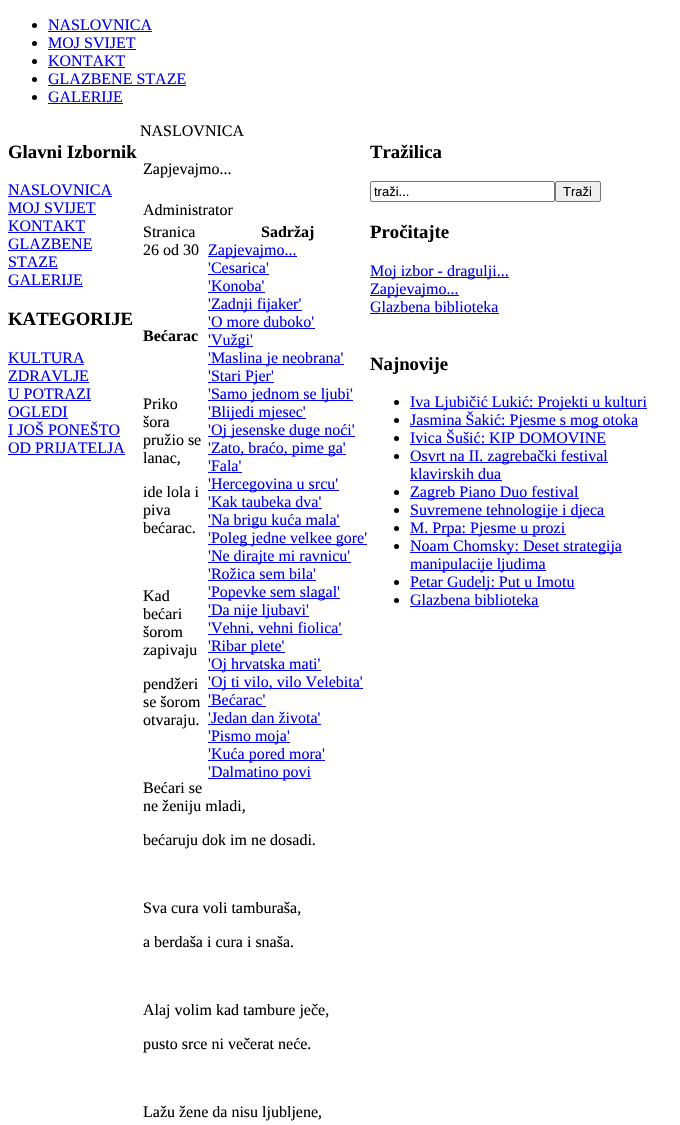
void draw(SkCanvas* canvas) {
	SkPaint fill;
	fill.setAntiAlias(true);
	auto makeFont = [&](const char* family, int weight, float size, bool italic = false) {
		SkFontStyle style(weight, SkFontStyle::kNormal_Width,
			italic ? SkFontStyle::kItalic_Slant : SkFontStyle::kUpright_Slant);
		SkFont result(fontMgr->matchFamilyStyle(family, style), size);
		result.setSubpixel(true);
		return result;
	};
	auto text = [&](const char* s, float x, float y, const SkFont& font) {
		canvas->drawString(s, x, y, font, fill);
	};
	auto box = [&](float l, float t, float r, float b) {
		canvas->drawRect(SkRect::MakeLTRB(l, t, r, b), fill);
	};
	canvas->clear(0xFFFFFFFF);
	fill.setColor(0xFF000000);
	canvas->drawCircle(34.5f, 25.5f, 2.5f, fill);
	fill.setColor(0xFF0000EE);
	box(48, 31, 152, 32);
	fill.setColor(0xFF000000);
	canvas->drawCircle(34.5f, 43.5f, 2.5f, fill);
	fill.setColor(0xFF0000EE);
	box(48, 49, 136, 50);
	fill.setColor(0xFF000000);
	canvas->drawCircle(34.5f, 61.5f, 2.5f, fill);
	fill.setColor(0xFF0000EE);
	box(48, 67, 125, 68);
	fill.setColor(0xFF000000);
	canvas->drawCircle(34.5f, 79.5f, 2.5f, fill);
	fill.setColor(0xFF0000EE);
	box(48, 85, 186, 86);
	fill.setColor(0xFF000000);
	canvas->drawCircle(34.5f, 97.5f, 2.5f, fill);
	fill.setColor(0xFF0000EE);
	box(48, 103, 123, 104);
	box(8, 196, 112, 197);
	box(8, 214, 96, 215);
	box(8, 232, 85, 233);
	box(8, 250, 92, 251);
	box(8, 268, 58, 269);
	box(8, 286, 83, 287);
	box(8, 364, 84, 365);
	box(8, 382, 89, 383);
	box(8, 400, 91, 401);
	box(8, 418, 68, 419);
	box(8, 436, 120, 437);
	box(8, 454, 125, 455);
	box(208, 256, 297, 257);
	box(208, 274, 269, 275);
	box(208, 292, 265, 293);
	box(208, 310, 302, 311);
	box(208, 328, 315, 329);
	box(208, 346, 253, 347);
	box(208, 364, 344, 365);
	box(208, 382, 274, 383);
	box(208, 400, 353, 401);
	box(208, 418, 306, 419);
	box(208, 436, 355, 437);
	box(208, 454, 346, 455);
	box(208, 472, 242, 473);
	box(208, 490, 339, 491);
	box(208, 508, 322, 509);
	box(208, 526, 340, 527);
	box(208, 544, 367, 545);
	box(208, 562, 351, 563);
	box(208, 580, 316, 581);
	box(208, 598, 340, 599);
	box(208, 616, 309, 617);
	box(208, 634, 342, 635);
	box(208, 652, 285, 653);
	box(208, 670, 321, 671);
	box(208, 688, 363, 689);
	box(208, 706, 266, 707);
	box(208, 724, 321, 725);
	box(208, 742, 290, 743);
	box(208, 760, 325, 761);
	box(208, 778, 311, 779);
	fill.setStyle(SkPaint::kStroke_Style);
	fill.setStrokeWidth(1);
	fill.setColor(0xFF767676);
	canvas->drawRoundRect(SkRect::MakeLTRB(370.5f, 181.5f, 554.5f, 201.5f), 1.5f, 1.5f, fill);
	fill.setStyle(SkPaint::kFill_Style);
	fill.setColor(0xFFEFEFEF);
	canvas->drawRoundRect(SkRect::MakeLTRB(555.5f, 181.5f, 600.5f, 201.5f), 1.5f, 1.5f, fill);
	fill.setStyle(SkPaint::kStroke_Style);
	fill.setColor(0xFF767676);
	canvas->drawRoundRect(SkRect::MakeLTRB(555.5f, 181.5f, 600.5f, 201.5f), 1.5f, 1.5f, fill);
	fill.setStyle(SkPaint::kFill_Style);
	fill.setColor(0xFF0000EE);
	box(370, 277, 509, 278);
	box(370, 295, 459, 296);
	box(370, 313, 499, 314);
	fill.setColor(0xFF000000);
	canvas->drawCircle(396.5f, 402.5f, 2.5f, fill);
	fill.setColor(0xFF0000EE);
	box(410, 408, 647, 409);
	fill.setColor(0xFF000000);
	canvas->drawCircle(396.5f, 420.5f, 2.5f, fill);
	fill.setColor(0xFF0000EE);
	box(410, 426, 638, 427);
	fill.setColor(0xFF000000);
	canvas->drawCircle(396.5f, 438.5f, 2.5f, fill);
	fill.setColor(0xFF0000EE);
	box(410, 444, 606, 445);
	fill.setColor(0xFF000000);
	canvas->drawCircle(396.5f, 456.5f, 2.5f, fill);
	fill.setColor(0xFF0000EE);
	box(410, 462, 608, 463);
	box(410, 480, 502, 481);
	fill.setColor(0xFF000000);
	canvas->drawCircle(396.5f, 492.5f, 2.5f, fill);
	fill.setColor(0xFF0000EE);
	box(410, 498, 579, 499);
	fill.setColor(0xFF000000);
	canvas->drawCircle(396.5f, 510.5f, 2.5f, fill);
	fill.setColor(0xFF0000EE);
	box(410, 516, 605, 517);
	fill.setColor(0xFF000000);
	canvas->drawCircle(396.5f, 528.5f, 2.5f, fill);
	fill.setColor(0xFF0000EE);
	box(410, 534, 566, 535);
	fill.setColor(0xFF000000);
	canvas->drawCircle(396.5f, 546.5f, 2.5f, fill);
	fill.setColor(0xFF0000EE);
	box(410, 552, 622, 553);
	box(410, 570, 546, 571);
	fill.setColor(0xFF000000);
	canvas->drawCircle(396.5f, 582.5f, 2.5f, fill);
	fill.setColor(0xFF0000EE);
	box(410, 588, 575, 589);
	fill.setColor(0xFF000000);
	canvas->drawCircle(396.5f, 600.5f, 2.5f, fill);
	fill.setColor(0xFF0000EE);
	box(410, 606, 539, 607);
	auto font1 = makeFont("Liberation Serif", 400, 16);
	text("NASLOVNICA", 48, 30, font1);
	text("MOJ SVIJET", 48, 48, font1);
	text("KONTAKT", 48, 66, font1);
	text("GLAZBENE STAZE", 48, 84, font1);
	text("GALERIJE", 48, 102, font1);
	auto font2 = makeFont("Liberation Serif", 700, 18.75f);
	fill.setColor(0xFF000000);
	text("Glavni Izbornik", 8, 158, font2);
	fill.setColor(0xFF0000EE);
	text("NASLOVNICA", 8, 195, font1);
	text("MOJ SVIJET", 8, 213, font1);
	text("KONTAKT", 8, 231, font1);
	text("GLAZBENE", 8, 249, font1);
	text("STAZE", 8, 267, font1);
	text("GALERIJE", 8, 285, font1);
	fill.setColor(0xFF000000);
	text("KATEGORIJE", 8, 325, font2);
	fill.setColor(0xFF0000EE);
	text("KULTURA", 8, 363, font1);
	text("ZDRAVLJE", 8, 381, font1);
	text("U POTRAZI", 8, 399, font1);
	text("OGLEDI", 8, 417, font1);
	text("I JOŠ PONEŠTO", 8, 435, font1);
	text("OD PRIJATELJA", 8, 453, font1);
	fill.setColor(0xFF000000);
	text("NASLOVNICA", 140, 136, font1);
	text("Zapjevajmo...", 143, 174, font1);
	text("Administrator", 143, 215, font1);
	text("Stranica", 143, 237, font1);
	text("26 od 30", 143, 255, font1);
	auto font3 = makeFont("Liberation Serif", 700, 16);
	text("Sadržaj", 261, 237, font3);
	fill.setColor(0xFF0000EE);
	text("Zapjevajmo...", 208, 255, font1);
	text("'Cesarica'", 208, 273, font1);
	text("'Konoba'", 208, 291, font1);
	text("'Zadnji fijaker'", 208, 309, font1);
	text("'O more duboko'", 208, 327, font1);
	text("'Vužgi'", 208, 345, font1);
	text("'Maslina je neobrana'", 208, 363, font1);
	text("'Stari Pjer'", 208, 381, font1);
	text("'Samo jednom se ljubi'", 208, 399, font1);
	text("'Blijedi mjesec'", 208, 417, font1);
	text("'Oj jesenske duge noći'", 208, 435, font1);
	text("'Zato, braćo, pime ga'", 208, 453, font1);
	text("'Fala'", 208, 471, font1);
	text("'Hercegovina u srcu'", 208, 489, font1);
	text("'Kak taubeka dva'", 208, 507, font1);
	text("'Na brigu kuća mala'", 208, 525, font1);
	text("'Poleg jedne velkee gore'", 208, 543, font1);
	text("'Ne dirajte mi ravnicu'", 208, 561, font1);
	text("'Rožica sem bila'", 208, 579, font1);
	text("'Popevke sem slagal'", 208, 597, font1);
	text("'Da nije ljubavi'", 208, 615, font1);
	text("'Vehni, vehni fiolica'", 208, 633, font1);
	text("'Ribar plete'", 208, 651, font1);
	text("'Oj hrvatska mati'", 208, 669, font1);
	text("'Oj ti vilo, vilo Velebita'", 208, 687, font1);
	text("'Bećarac'", 208, 705, font1);
	text("'Jedan dan života'", 208, 723, font1);
	text("'Pismo moja'", 208, 741, font1);
	text("'Kuća pored mora'", 208, 759, font1);
	text("'Dalmatino povi", 208, 777, font1);
	fill.setColor(0xFF000000);
	text("Bećarac", 143, 341, font3);
	text("Priko", 143, 409, font1);
	text("šora", 143, 427, font1);
	text("pružio se", 143, 445, font1);
	text("lanac,", 143, 463, font1);
	text("ide lola i", 143, 497, font1);
	text("piva", 143, 515, font1);
	text("bećarac.", 143, 533, font1);
	text("Kad", 143, 601, font1);
	text("bećari", 143, 619, font1);
	text("šorom", 143, 637, font1);
	text("zapivaju", 143, 655, font1);
	text("pendžeri", 143, 689, font1);
	text("se šorom", 143, 707, font1);
	text("otvaraju.", 143, 725, font1);
	text("Bećari se", 143, 793, font1);
	text("ne ženiju mladi,", 143, 811, font1);
	text("bećaruju dok im ne dosadi.", 143, 845, font1);
	text("Sva cura voli tamburaša,", 143, 913, font1);
	text("a berdaša i cura i snaša.", 143, 947, font1);
	text("Alaj volim kad tambure ječe,", 143, 1015, font1);
	text("pusto srce ni večerat neće.", 143, 1049, font1);
	text("Lažu žene da nisu ljubljene,", 143, 1117, font1);
	text("Tražilica", 370, 158, font2);
	auto font4 = makeFont("Liberation Sans", 400, 13);
	text("traži...", 374, 196, font4);
	text("Traži", 563, 196, font4);
	text("Pročitajte", 370, 238, font2);
	fill.setColor(0xFF0000EE);
	text("Moj izbor - dragulji...", 370, 276, font1);
	text("Zapjevajmo...", 370, 294, font1);
	text("Glazbena biblioteka", 370, 312, font1);
	fill.setColor(0xFF000000);
	text("Najnovije", 370, 370, font2);
	fill.setColor(0xFF0000EE);
	text("Iva Ljubičić Lukić: Projekti u kulturi", 410, 407, font1);
	text("Jasmina Šakić: Pjesme s mog otoka", 410, 425, font1);
	text("Ivica Šušić: KIP DOMOVINE", 410, 443, font1);
	text("Osvrt na II. zagrebački festival", 410, 461, font1);
	text("klavirskih dua", 410, 479, font1);
	text("Zagreb Piano Duo festival", 410, 497, font1);
	text("Suvremene tehnologije i djeca", 410, 515, font1);
	text("M. Prpa: Pjesme u prozi", 410, 533, font1);
	text("Noam Chomsky: Deset strategija", 410, 551, font1);
	text("manipulacije ljudima", 410, 569, font1);
	text("Petar Gudelj: Put u Imotu", 410, 587, font1);
	text("Glazbena biblioteka", 410, 605, font1);
}
